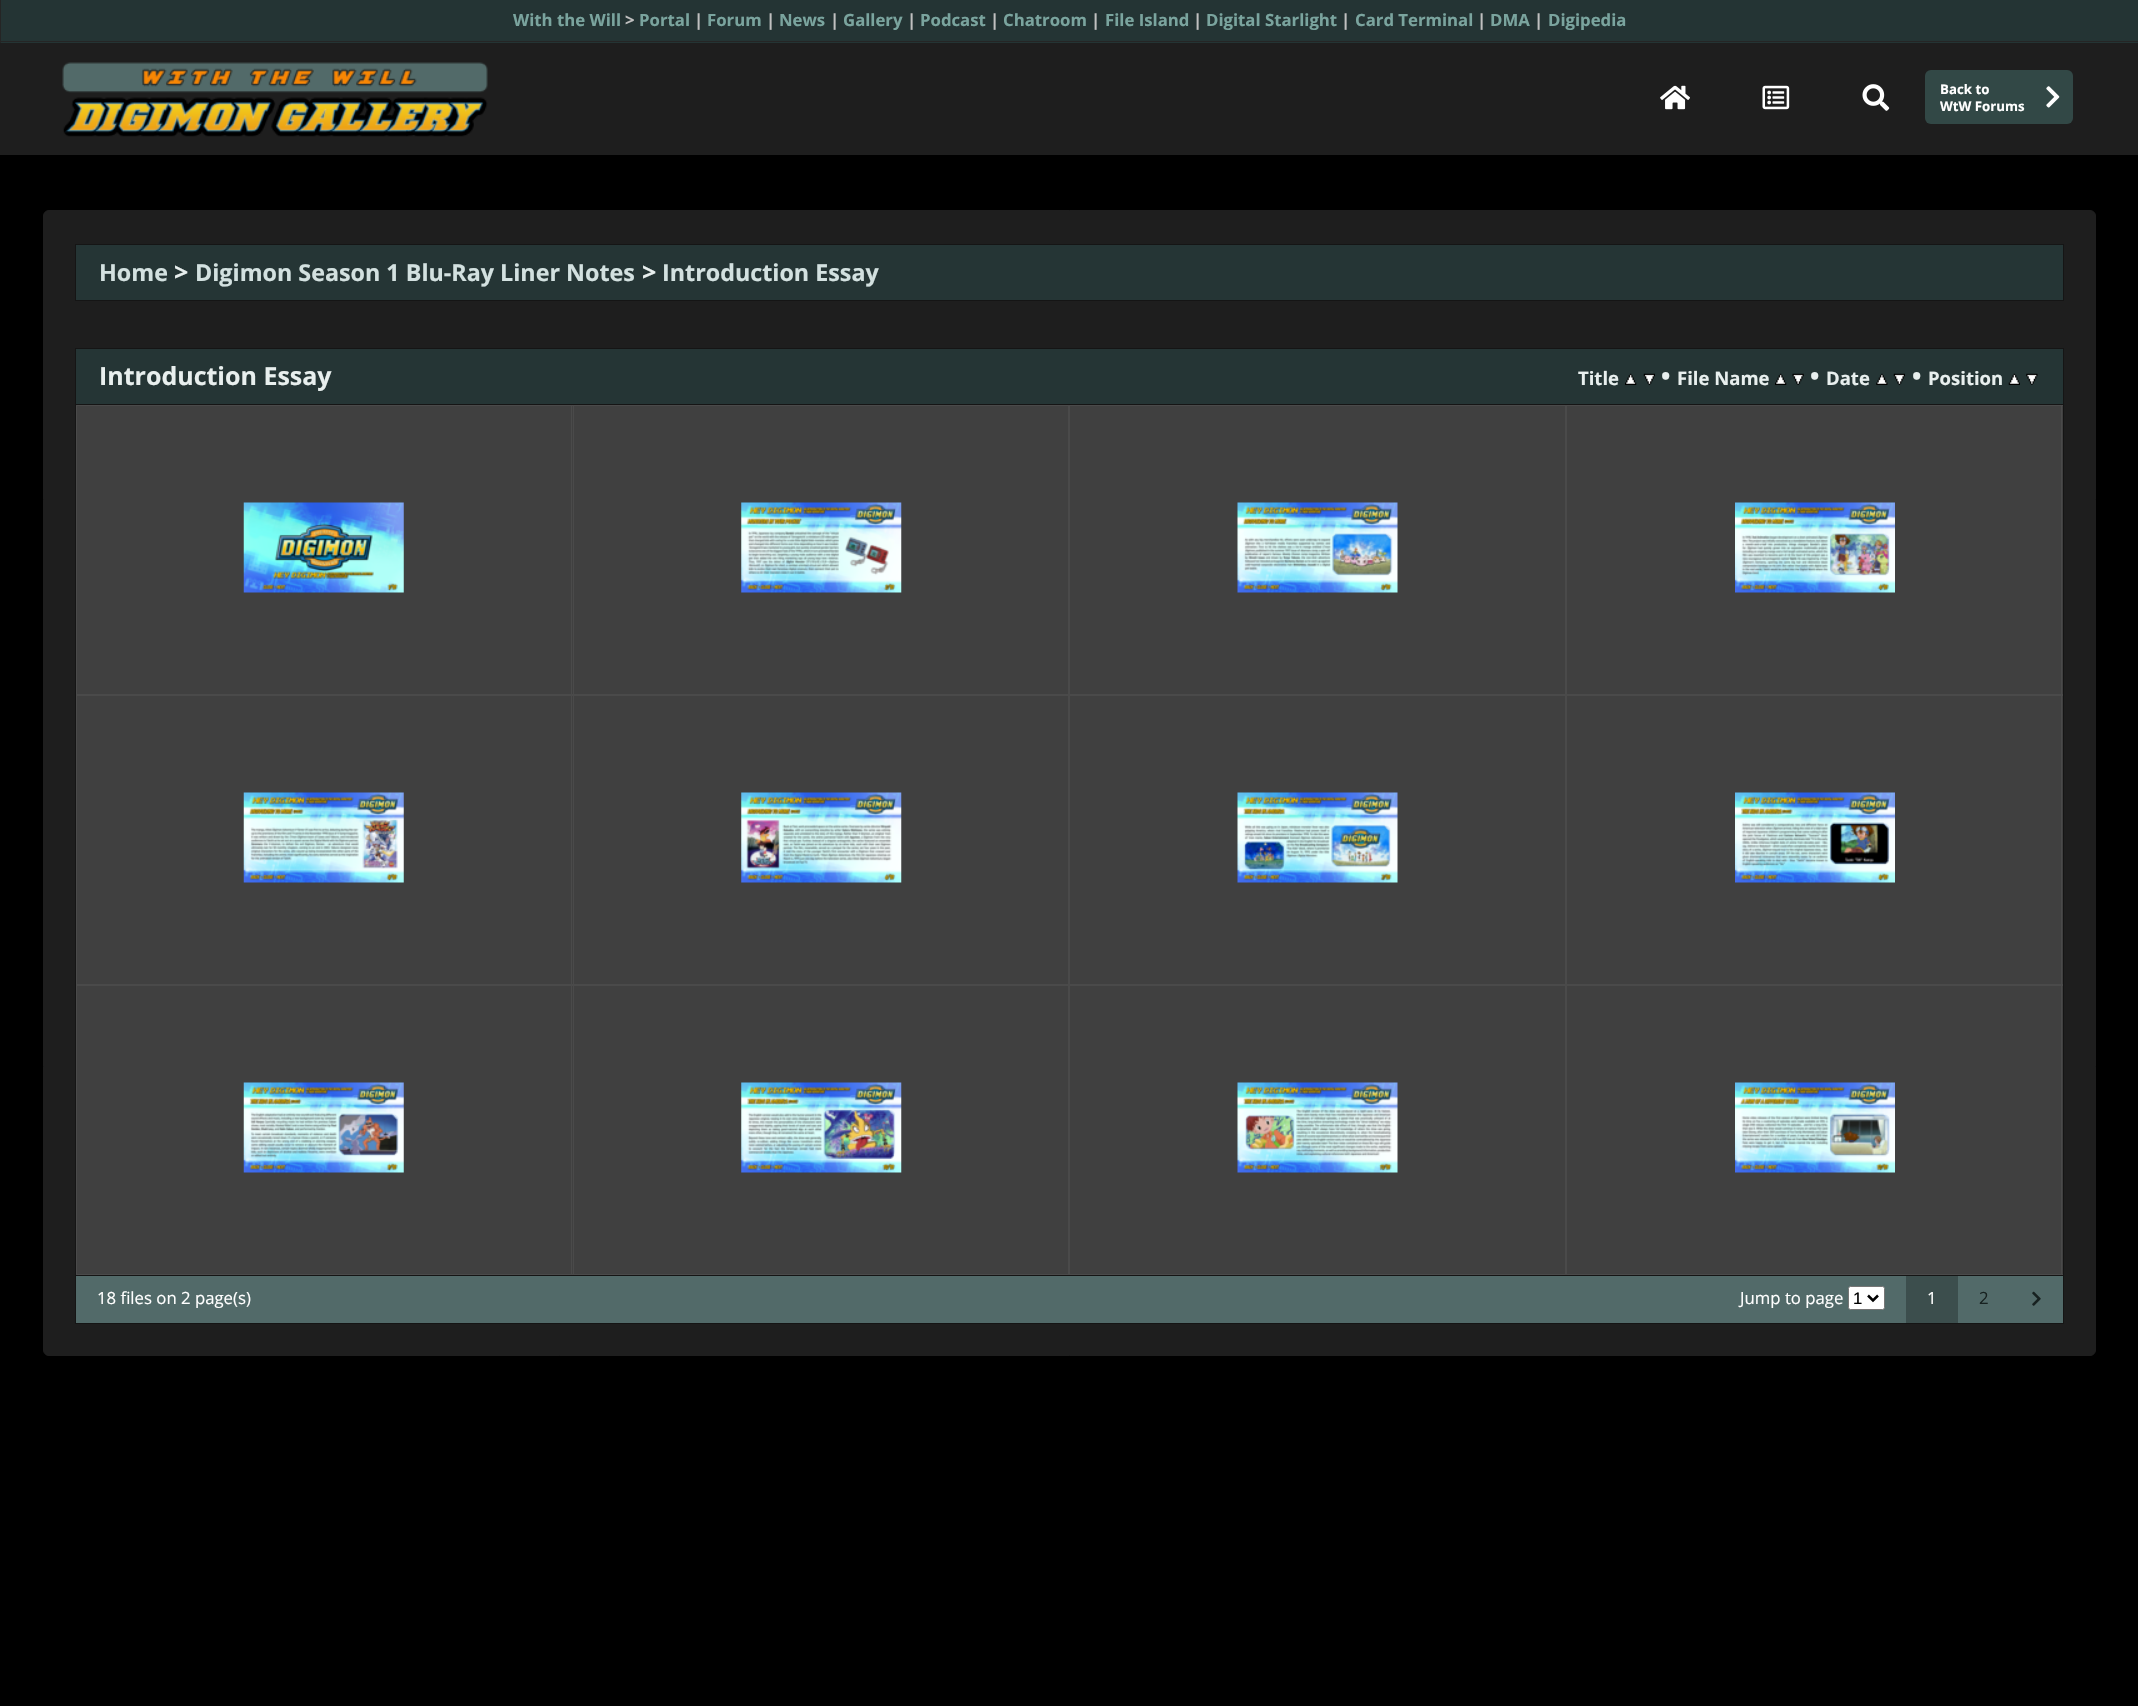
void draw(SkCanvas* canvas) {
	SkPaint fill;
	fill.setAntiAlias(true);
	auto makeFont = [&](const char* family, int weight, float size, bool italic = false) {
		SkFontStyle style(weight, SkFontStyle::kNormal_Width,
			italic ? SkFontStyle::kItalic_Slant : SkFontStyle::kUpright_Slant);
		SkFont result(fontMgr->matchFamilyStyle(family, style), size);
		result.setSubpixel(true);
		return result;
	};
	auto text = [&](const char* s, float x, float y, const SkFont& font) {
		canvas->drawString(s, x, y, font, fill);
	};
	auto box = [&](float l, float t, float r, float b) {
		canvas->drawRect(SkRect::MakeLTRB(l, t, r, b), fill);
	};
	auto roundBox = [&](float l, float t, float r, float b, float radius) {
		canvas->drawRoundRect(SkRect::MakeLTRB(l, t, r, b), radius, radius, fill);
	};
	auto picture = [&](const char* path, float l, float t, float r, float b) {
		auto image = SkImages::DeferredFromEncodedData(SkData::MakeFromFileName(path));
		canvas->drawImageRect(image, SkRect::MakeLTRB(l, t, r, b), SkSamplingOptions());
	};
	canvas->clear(0xFF000000);
	fill.setColor(0xFF243434);
	box(1, 0, 2138, 43);
	fill.setColor(0xFF252525);
	box(0, 41, 2138, 42);
	box(0, 0, 1, 43);
	fill.setColor(0xFF1E1E1E);
	box(0, 43, 2138, 155);
	picture("image0.png", 62, 62, 488, 137);
	picture("image1.png", 1660, 85, 1690, 110);
	picture("image2.png", 1762, 85, 1790, 110);
	picture("image3.png", 1862, 84, 1890, 111);
	fill.setColor(0xFF324846);
	roundBox(1925, 70, 2073, 124, 6);
	picture("image4.png", 2046, 86, 2060, 108);
	fill.setColor(0xFF1E1E1E);
	canvas->drawRoundRect(SkRect::MakeLTRB(43.5f, 210.5f, 2095.5f, 1355.5f), 5.5f, 5.5f, fill);
	fill.setStyle(SkPaint::kStroke_Style);
	fill.setStrokeWidth(1);
	canvas->drawRoundRect(SkRect::MakeLTRB(43.5f, 210.5f, 2095.5f, 1355.5f), 5.5f, 5.5f, fill);
	fill.setStyle(SkPaint::kFill_Style);
	fill.setColor(0xFF151515);
	box(75, 244, 2064, 245);
	box(2063, 244, 2064, 301);
	box(75, 300, 2064, 301);
	box(75, 244, 76, 301);
	fill.setColor(0xFF253535);
	box(76, 245, 2063, 300);
	fill.setColor(0xFF151515);
	box(75, 348, 2064, 349);
	box(75, 1275, 2064, 1276);
	box(2063, 348, 2064, 1324);
	box(75, 1323, 2064, 1324);
	box(75, 348, 76, 1324);
	fill.setColor(0xFF253535);
	box(76, 349, 2063, 404);
	fill.setColor(0xFF151515);
	box(75, 404, 2064, 405);
	picture("image5.png", 1625, 373, 1637, 385);
	picture("image6.png", 1643, 373, 1655, 385);
	picture("image7.png", 1775, 373, 1787, 385);
	picture("image8.png", 1792, 373, 1804, 385);
	picture("image9.png", 1876, 373, 1888, 385);
	picture("image10.png", 1893, 373, 1905, 385);
	picture("image11.png", 2008, 373, 2020, 385);
	picture("image12.png", 2026, 373, 2038, 385);
	fill.setColor(0xFF404040);
	box(77, 406, 573, 694);
	fill.setColor(0xFF4A4A4A);
	box(76, 405, 2063, 406);
	box(571, 405, 572, 695);
	box(76, 694, 573, 696);
	box(76, 405, 77, 695);
	picture("image13.png", 243, 502, 404, 593);
	fill.setColor(0xFF404040);
	box(574, 406, 1068, 694);
	fill.setColor(0xFF4A4A4A);
	box(1068, 405, 1069, 695);
	box(573, 694, 1069, 696);
	box(573, 405, 574, 695);
	picture("image14.png", 741, 502, 902, 593);
	fill.setColor(0xFF404040);
	box(1070, 406, 1565, 694);
	fill.setColor(0xFF4A4A4A);
	box(1565, 405, 1566, 695);
	box(1069, 694, 1566, 696);
	box(1069, 405, 1070, 695);
	picture("image15.png", 1237, 502, 1398, 593);
	fill.setColor(0xFF404040);
	box(1567, 406, 2063, 694);
	fill.setColor(0xFF4A4A4A);
	box(2061, 405, 2062, 695);
	box(1566, 694, 2063, 696);
	box(1566, 405, 1567, 695);
	picture("image16.png", 1735, 502, 1895, 593);
	fill.setColor(0xFF404040);
	box(77, 696, 573, 984);
	fill.setColor(0xFF4A4A4A);
	box(571, 695, 572, 985);
	box(76, 984, 573, 986);
	box(76, 695, 77, 985);
	picture("image17.png", 243, 792, 404, 883);
	fill.setColor(0xFF404040);
	box(574, 696, 1068, 984);
	fill.setColor(0xFF4A4A4A);
	box(1068, 695, 1069, 985);
	box(573, 984, 1069, 986);
	box(573, 695, 574, 985);
	picture("image18.png", 741, 792, 902, 883);
	fill.setColor(0xFF404040);
	box(1070, 696, 1565, 984);
	fill.setColor(0xFF4A4A4A);
	box(1565, 695, 1566, 985);
	box(1069, 984, 1566, 986);
	box(1069, 695, 1070, 985);
	picture("image19.png", 1237, 792, 1398, 883);
	fill.setColor(0xFF404040);
	box(1567, 696, 2063, 984);
	fill.setColor(0xFF4A4A4A);
	box(2061, 695, 2062, 985);
	box(1566, 984, 2063, 986);
	box(1566, 695, 1567, 985);
	picture("image20.png", 1735, 792, 1895, 883);
	fill.setColor(0xFF404040);
	box(77, 986, 573, 1274);
	fill.setColor(0xFF4A4A4A);
	box(571, 985, 572, 1275);
	box(76, 1274, 573, 1275);
	box(76, 985, 77, 1275);
	picture("image21.png", 243, 1082, 404, 1173);
	fill.setColor(0xFF404040);
	box(574, 986, 1068, 1274);
	fill.setColor(0xFF4A4A4A);
	box(1068, 985, 1069, 1275);
	box(573, 1274, 1069, 1275);
	box(573, 985, 574, 1275);
	picture("image22.png", 741, 1082, 902, 1173);
	fill.setColor(0xFF404040);
	box(1070, 986, 1565, 1274);
	fill.setColor(0xFF4A4A4A);
	box(1565, 985, 1566, 1275);
	box(1069, 1274, 1566, 1275);
	box(1069, 985, 1070, 1275);
	picture("image23.png", 1237, 1082, 1398, 1173);
	fill.setColor(0xFF404040);
	box(1567, 986, 2063, 1274);
	fill.setColor(0xFF4A4A4A);
	box(2061, 985, 2062, 1275);
	box(1566, 1274, 2063, 1275);
	box(1566, 985, 1567, 1275);
	picture("image24.png", 1735, 1082, 1895, 1173);
	fill.setColor(0xFF526A69);
	box(1958, 1276, 2063, 1323);
	picture("image25.png", 2032, 1291, 2041, 1306);
	box(76, 1276, 1906, 1323);
	fill.setColor(0xFFFFFFFF);
	canvas->drawRoundRect(SkRect::MakeLTRB(1848.5f, 1286.5f, 1884.5f, 1309.5f), 2, 2, fill);
	fill.setStyle(SkPaint::kStroke_Style);
	fill.setColor(0xFF767676);
	canvas->drawRoundRect(SkRect::MakeLTRB(1848.5f, 1286.5f, 1884.5f, 1309.5f), 2, 2, fill);
	fill.setStrokeWidth(2.5f);
	fill.setColor(0xFF000000);
	canvas->drawPath(SkPathBuilder().moveTo(1868, 1295.5f).lineTo(1873, 1300.5f).lineTo(1878, 1295.5f).detach(), fill);
	fill.setStyle(SkPaint::kFill_Style);
	fill.setColor(0xFF3C4E4D);
	box(1906, 1276, 1958, 1323);
	auto font1 = makeFont("Open Sans", 700, 16.75f);
	fill.setColor(0xFF7AA49E);
	text("With the Will", 513, 26, font1);
	fill.setColor(0xFFC0C0C0);
	text(">", 625, 26, font1);
	fill.setColor(0xFF7AA49E);
	text("Portal", 639, 26, font1);
	fill.setColor(0xFFC0C0C0);
	text("|", 694, 26, font1);
	fill.setColor(0xFF7AA49E);
	text("Forum", 707, 26, font1);
	fill.setColor(0xFFC0C0C0);
	text("|", 766, 26, font1);
	fill.setColor(0xFF7AA49E);
	text("News", 779, 26, font1);
	fill.setColor(0xFFC0C0C0);
	text("|", 830, 26, font1);
	fill.setColor(0xFF7AA49E);
	text("Gallery", 843, 26, font1);
	fill.setColor(0xFFC0C0C0);
	text("|", 907, 26, font1);
	fill.setColor(0xFF7AA49E);
	text("Podcast", 920, 26, font1);
	fill.setColor(0xFFC0C0C0);
	text("|", 990, 26, font1);
	fill.setColor(0xFF7AA49E);
	text("Chatroom", 1003, 26, font1);
	fill.setColor(0xFFC0C0C0);
	text("|", 1091, 26, font1);
	fill.setColor(0xFF7AA49E);
	text("File Island", 1105, 26, font1);
	fill.setColor(0xFFC0C0C0);
	text("|", 1193, 26, font1);
	fill.setColor(0xFF7AA49E);
	text("Digital Starlight", 1206, 26, font1);
	fill.setColor(0xFFC0C0C0);
	text("|", 1341, 26, font1);
	fill.setColor(0xFF7AA49E);
	text("Card Terminal", 1355, 26, font1);
	fill.setColor(0xFFC0C0C0);
	text("|", 1477, 26, font1);
	fill.setColor(0xFF7AA49E);
	text("DMA", 1490, 26, font1);
	fill.setColor(0xFFC0C0C0);
	text("|", 1534, 26, font1);
	fill.setColor(0xFF7AA49E);
	text("Digipedia", 1548, 26, font1);
	auto font2 = makeFont("Open Sans", 700, 13.25f);
	fill.setColor(0xFFFFFFFF);
	text("Back to", 1940, 94, font2);
	text("WtW Forums", 1940, 111, font2);
	auto font3 = makeFont("Open Sans", 700, 23.3f);
	fill.setColor(0xFFD3E1E0);
	text("Home", 99, 281, font3);
	auto font4 = makeFont("Open Sans", 700, 25);
	fill.setColor(0xFFE8EFEE);
	text(">", 174, 281, font4);
	fill.setColor(0xFFD3E1E0);
	text("Digimon Season 1 Blu-Ray Liner Notes", 195, 281, font3);
	fill.setColor(0xFFE8EFEE);
	text(">", 642, 281, font4);
	fill.setColor(0xFFD3E1E0);
	text("Introduction Essay", 662, 281, font3);
	fill.setColor(0xFFE8EFEE);
	text("Introduction Essay", 99, 385, font4);
	auto font5 = makeFont("Open Sans", 700, 18.5f);
	text("Title", 1578, 385, font5);
	text("•", 1661, 385, font4);
	text("File Name", 1677, 385, font5);
	text("•", 1810, 385, font4);
	text("Date", 1826, 385, font5);
	text("•", 1912, 385, font4);
	text("Position", 1928, 385, font5);
	auto font6 = makeFont("Open Sans", 400, 16.75f);
	fill.setColor(0xFFFFFFFF);
	text("18 files on 2 page(s)", 97, 1304, font6);
	text("Jump to page", 1740, 1304, font6);
	auto font7 = makeFont("Liberation Sans", 400, 16.75f);
	fill.setColor(0xFF000000);
	text("1", 1853, 1304, font7);
	fill.setColor(0xFFFFFFFF);
	text("1", 1927, 1304, font6);
	fill.setColor(0xFF172120);
	text("2", 1979, 1304, font6);
}
